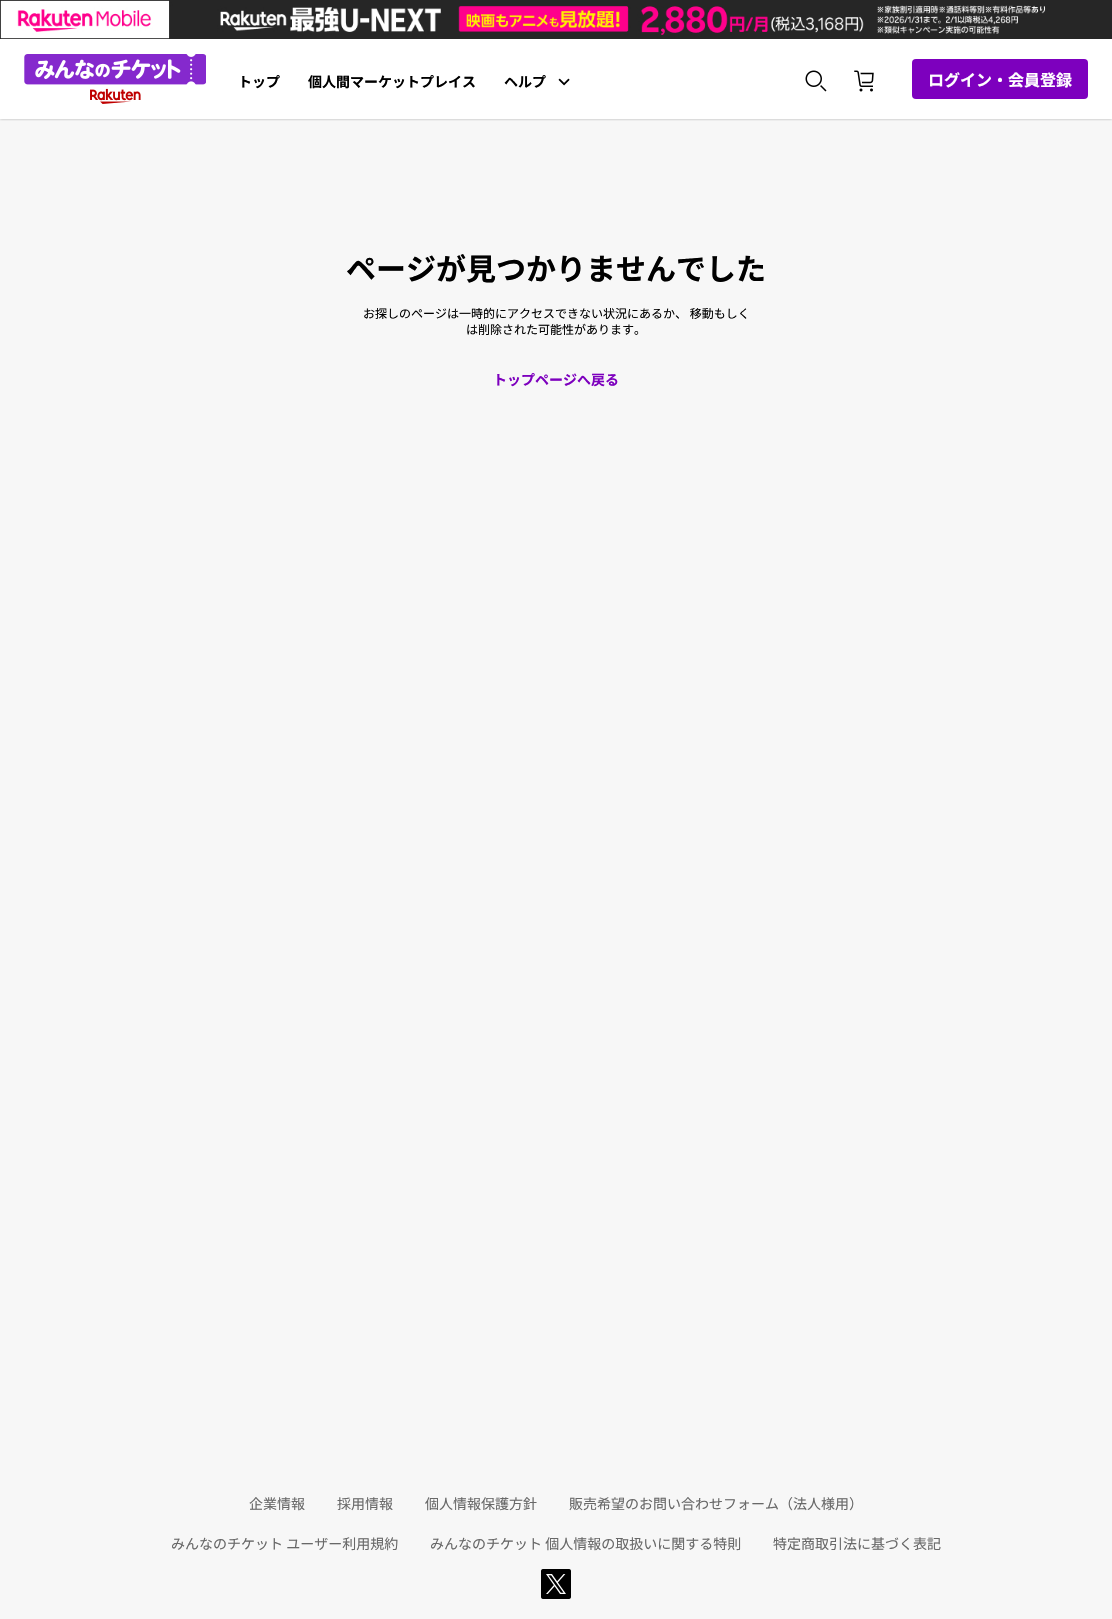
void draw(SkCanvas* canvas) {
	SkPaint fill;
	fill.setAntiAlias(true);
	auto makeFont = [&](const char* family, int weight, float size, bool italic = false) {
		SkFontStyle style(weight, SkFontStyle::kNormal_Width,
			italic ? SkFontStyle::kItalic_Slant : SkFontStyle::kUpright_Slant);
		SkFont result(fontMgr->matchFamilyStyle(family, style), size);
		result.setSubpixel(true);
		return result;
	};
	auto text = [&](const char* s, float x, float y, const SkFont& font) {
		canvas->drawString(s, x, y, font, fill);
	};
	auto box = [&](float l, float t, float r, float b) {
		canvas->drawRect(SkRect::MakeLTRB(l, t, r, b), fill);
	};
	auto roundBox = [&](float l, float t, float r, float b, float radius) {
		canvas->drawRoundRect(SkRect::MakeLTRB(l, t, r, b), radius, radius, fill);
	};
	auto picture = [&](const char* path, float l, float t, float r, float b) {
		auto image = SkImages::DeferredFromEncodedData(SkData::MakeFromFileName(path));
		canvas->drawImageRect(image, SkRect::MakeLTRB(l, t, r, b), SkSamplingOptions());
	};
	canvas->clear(0xFFFFFFFF);
	picture("image0.png", 0, 0, 1112, 39);
	fill.setColor(0xFFF7F7F7);
	box(0, 119, 1112, 1619);
	canvas->save();
	canvas->clipRect(SkRect::MakeLTRB(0, 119, 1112, 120));
	fill.setColor(0x0F000000);
	fill.setMaskFilter(SkMaskFilter::MakeBlur(kNormal_SkBlurStyle, 1));
	canvas->drawRect(SkRect::MakeLTRB(0, 40, 1112, 120), fill);
	fill.setMaskFilter(nullptr);
	canvas->restore();
	canvas->save();
	canvas->clipRect(SkRect::MakeLTRB(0, 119, 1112, 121));
	fill.setColor(0x1A000000);
	fill.setMaskFilter(SkMaskFilter::MakeBlur(kNormal_SkBlurStyle, 1.5f));
	canvas->drawRect(SkRect::MakeLTRB(0, 40, 1112, 120), fill);
	fill.setMaskFilter(nullptr);
	canvas->restore();
	picture("image1.png", 24, 54, 206, 104);
	picture("image2.png", 558, 78, 570, 86);
	picture("image3.png", 805, 70, 827, 92);
	picture("image4.png", 854, 70, 874, 92);
	fill.setColor(0xFF7D00BE);
	roundBox(912, 59, 1088, 99, 4);
	picture("image5.png", 541, 1569, 571, 1599);
	auto font1 = makeFont("Noto Sans JP", 700, 14);
	fill.setColor(0xFF000000);
	text("トップ", 238, 87, font1);
	text("個人間マーケットプレイス", 308, 87, font1);
	text("ヘルプ", 504, 87, font1);
	auto font2 = makeFont("Noto Sans JP", 700, 16);
	fill.setColor(0xFFFFFFFF);
	text("ログイン・会員登録", 928, 86, font2);
	auto font3 = makeFont("Noto Sans JP", 700, 30);
	fill.setColor(0xFF000000);
	text("ページが見つかりませんでした", 346, 280, font3);
	auto font4 = makeFont("Noto Sans JP", 400, 12);
	text("お探しのページは一時的にアクセスできない状況にあるか、 移動もしく", 363, 318, font4);
	text("は削除された可能性があります。", 466, 334, font4);
	fill.setColor(0xFF7D00BE);
	text("トップページへ戻る", 493, 385, font1);
	auto font5 = makeFont("Noto Sans JP", 400, 14);
	fill.setColor(0xFF686868);
	text("企業情報", 249, 1509, font5);
	text("採用情報", 337, 1509, font5);
	text("個人情報保護方針", 425, 1509, font5);
	text("販売希望のお問い合わせフォーム（法人様用）", 569, 1509, font5);
	text("みんなのチケット ユーザー利用規約", 171, 1549, font5);
	text("みんなのチケット 個人情報の取扱いに関する特則", 430, 1549, font5);
	text("特定商取引法に基づく表記", 773, 1549, font5);
}
